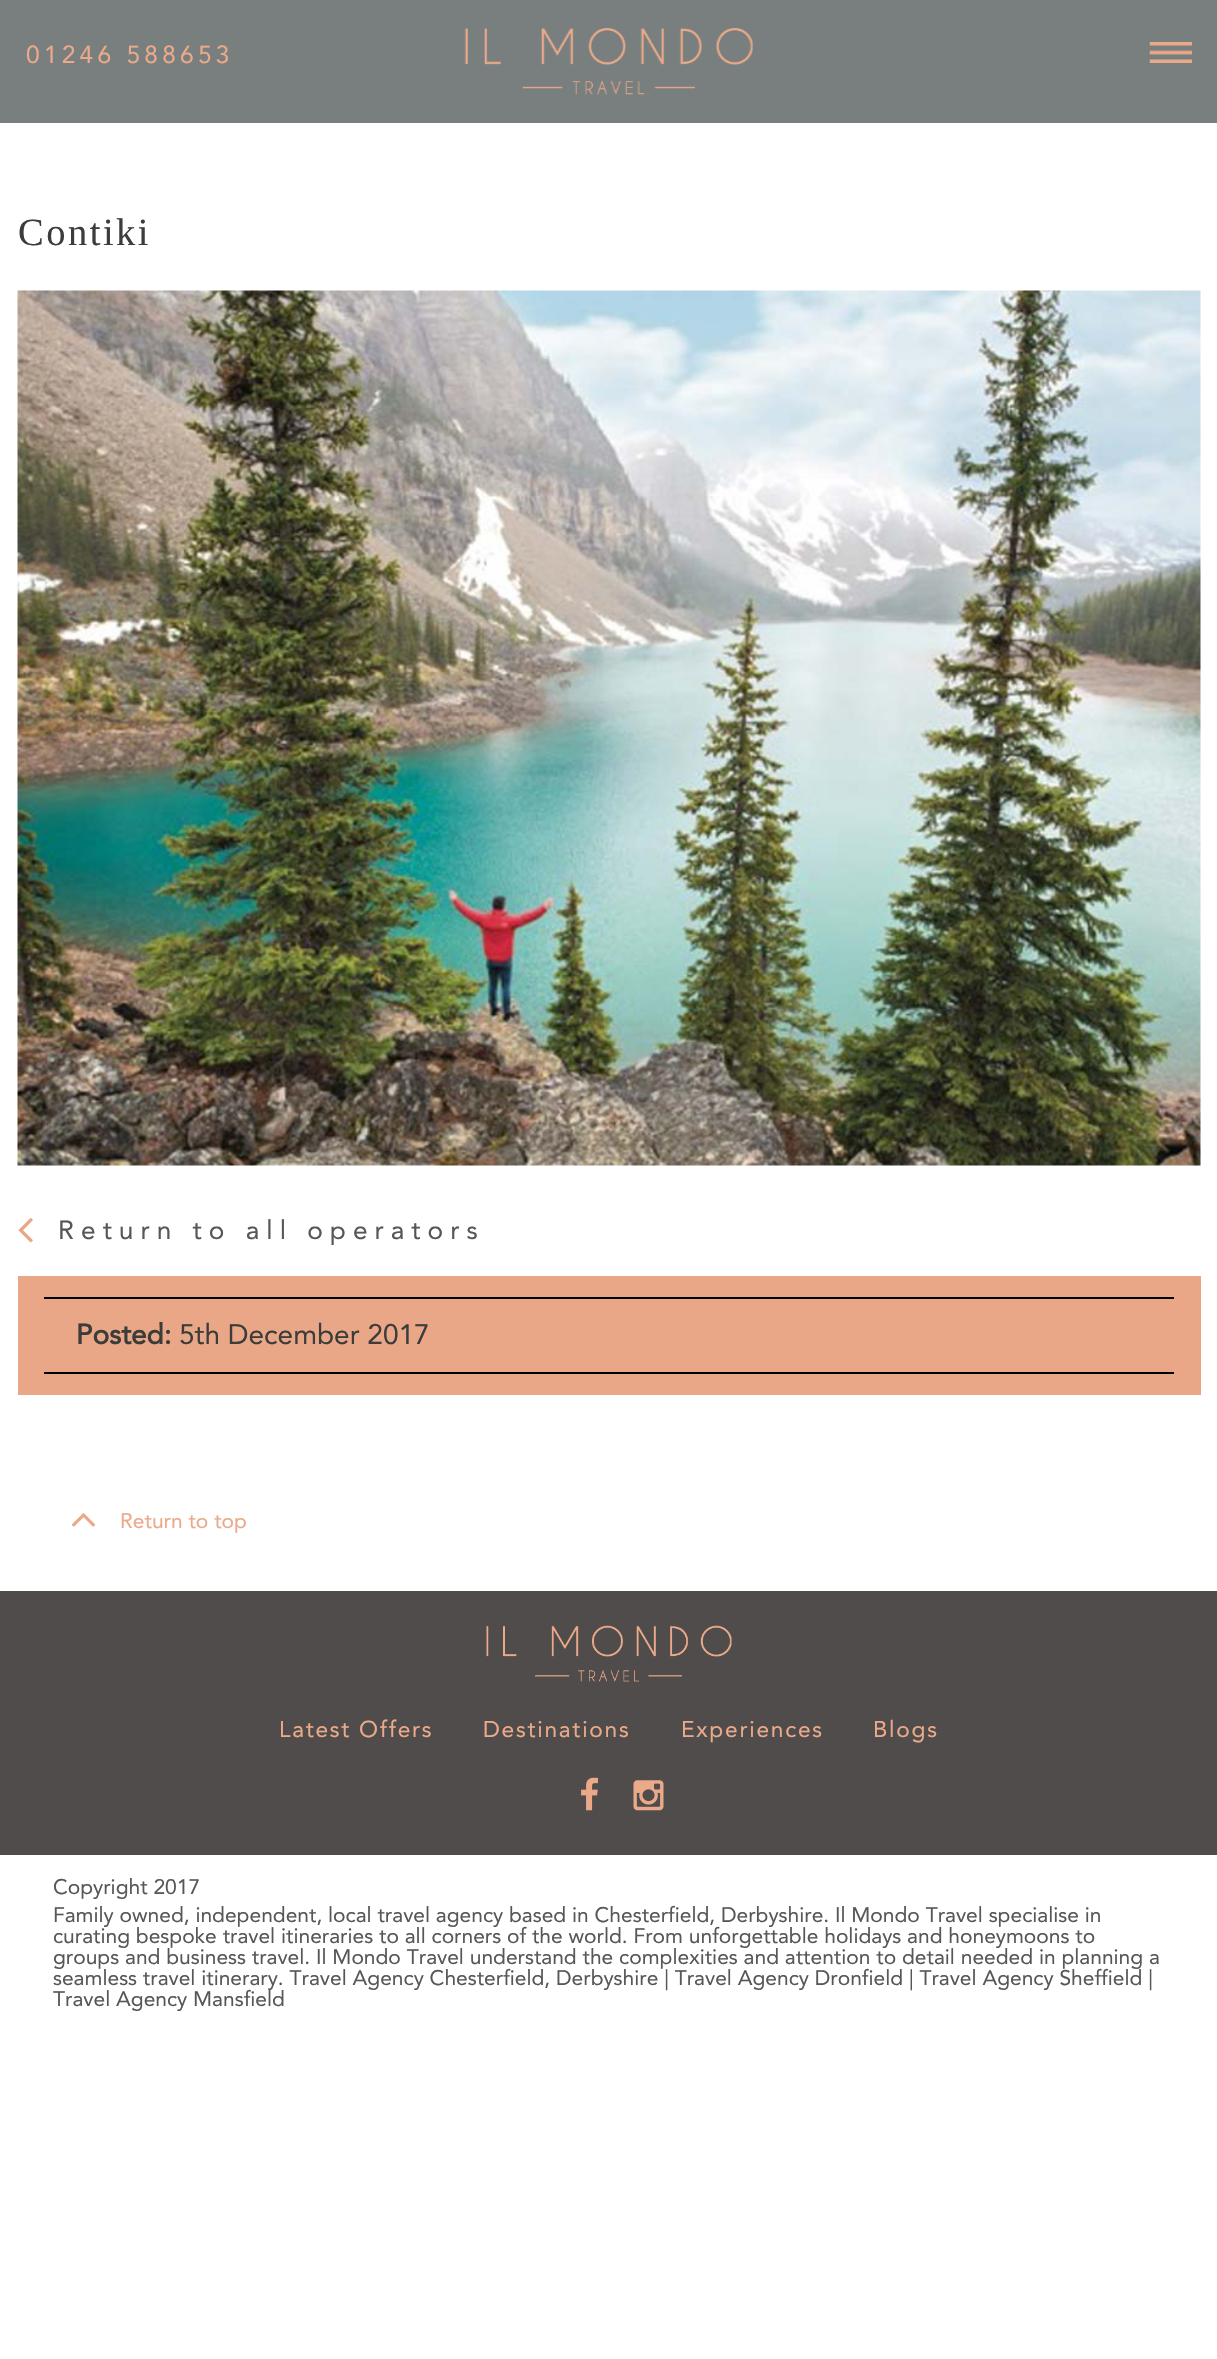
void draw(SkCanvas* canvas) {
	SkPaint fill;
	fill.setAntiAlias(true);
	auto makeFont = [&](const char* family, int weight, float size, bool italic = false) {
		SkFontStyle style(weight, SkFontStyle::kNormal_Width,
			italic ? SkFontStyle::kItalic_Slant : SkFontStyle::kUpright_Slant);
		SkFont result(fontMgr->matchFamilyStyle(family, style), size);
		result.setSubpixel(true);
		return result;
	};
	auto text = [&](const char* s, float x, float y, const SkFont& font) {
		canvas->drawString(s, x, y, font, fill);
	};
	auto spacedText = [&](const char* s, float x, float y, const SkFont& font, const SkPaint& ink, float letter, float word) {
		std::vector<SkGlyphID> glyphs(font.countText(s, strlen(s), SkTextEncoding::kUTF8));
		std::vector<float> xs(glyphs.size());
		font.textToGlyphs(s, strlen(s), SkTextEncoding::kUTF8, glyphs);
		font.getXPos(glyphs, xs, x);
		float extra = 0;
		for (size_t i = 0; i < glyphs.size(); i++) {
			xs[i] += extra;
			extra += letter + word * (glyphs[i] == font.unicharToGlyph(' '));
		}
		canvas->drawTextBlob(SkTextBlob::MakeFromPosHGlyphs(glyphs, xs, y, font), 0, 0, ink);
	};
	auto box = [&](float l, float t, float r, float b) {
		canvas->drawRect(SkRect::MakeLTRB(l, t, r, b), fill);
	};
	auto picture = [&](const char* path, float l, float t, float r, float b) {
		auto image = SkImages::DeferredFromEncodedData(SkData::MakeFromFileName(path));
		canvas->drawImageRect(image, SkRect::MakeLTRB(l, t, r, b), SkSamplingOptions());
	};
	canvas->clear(0xFFFFFFFF);
	fill.setColor(0xFF797F7F);
	box(0, 0, 1217, 123);
	picture("image0.png", 464, 28, 753, 95);
	picture("image1.png", 1149, 42, 1192, 63);
	picture("image2.png", 17, 290, 1201, 1166);
	picture("image3.png", 18, 1218, 33, 1243);
	fill.setColor(0xFFEAA787);
	box(18, 1276, 1201, 1395);
	fill.setColor(0xFF000000);
	box(44, 1297, 1174, 1299);
	box(44, 1372, 1174, 1374);
	picture("image4.png", 71, 1513, 96, 1527);
	fill.setColor(0xFF4F4C4B);
	box(0, 1591, 1217, 1855);
	picture("image5.png", 486, 1625, 732, 1682);
	picture("image6.png", 581, 1777, 598, 1811);
	picture("image7.png", 633, 1780, 664, 1811);
	auto font1 = makeFont("Avenir", 400, 24.5f);
	fill.setColor(0xFFEAAA89);
	spacedText("01246 588653", 26, 63, font1, fill, 4.25f, 0);
	auto font2 = makeFont("Liberation Serif", 400, 38.5f);
	fill.setColor(0xFF3C3C3B);
	spacedText("Contiki", 18, 245, font2, fill, 2.5f, 0);
	auto font3 = makeFont("Avenir", 400, 26.25f);
	fill.setColor(0xFF575756);
	spacedText("Return to all operators", 58, 1239, font3, fill, 7, 0);
	auto font4 = makeFont("Avenir", 700, 28);
	fill.setColor(0xFF3C3C3B);
	text("Posted:", 76, 1344, font4);
	auto font5 = makeFont("Avenir", 400, 28);
	text("5th December 2017", 179, 1344, font5);
	auto font6 = makeFont("Avenir", 400, 21);
	fill.setColor(0xFFEAAA89);
	text("Return to top", 120, 1528, font6);
	auto font7 = makeFont("Avenir", 400, 22.75f);
	spacedText("Latest Offers", 279, 1737, font7, fill, 1.75f, 0);
	spacedText("Destinations", 483, 1737, font7, fill, 1.75f, 0);
	spacedText("Experiences", 681, 1737, font7, fill, 1.75f, 0);
	spacedText("Blogs", 873, 1737, font7, fill, 1.75f, 0);
	fill.setColor(0xFF575756);
	text("Copyright 2017", 53, 1894, font6);
	text("Family owned, independent, local travel agency based in Chesterfield, Derbyshire. Il Mondo Travel specialise in", 53, 1922, font6);
	text("curating bespoke travel itineraries to all corners of the world. From unforgettable holidays and honeymoons to", 53, 1943, font6);
	text("groups and business travel. Il Mondo Travel understand the complexities and attention to detail needed in planning a", 53, 1964, font6);
	text("seamless travel itinerary. Travel Agency Chesterfield, Derbyshire | Travel Agency Dronfield | Travel Agency Sheffield |", 53, 1985, font6);
	text("Travel Agency Mansfield", 53, 2006, font6);
}
